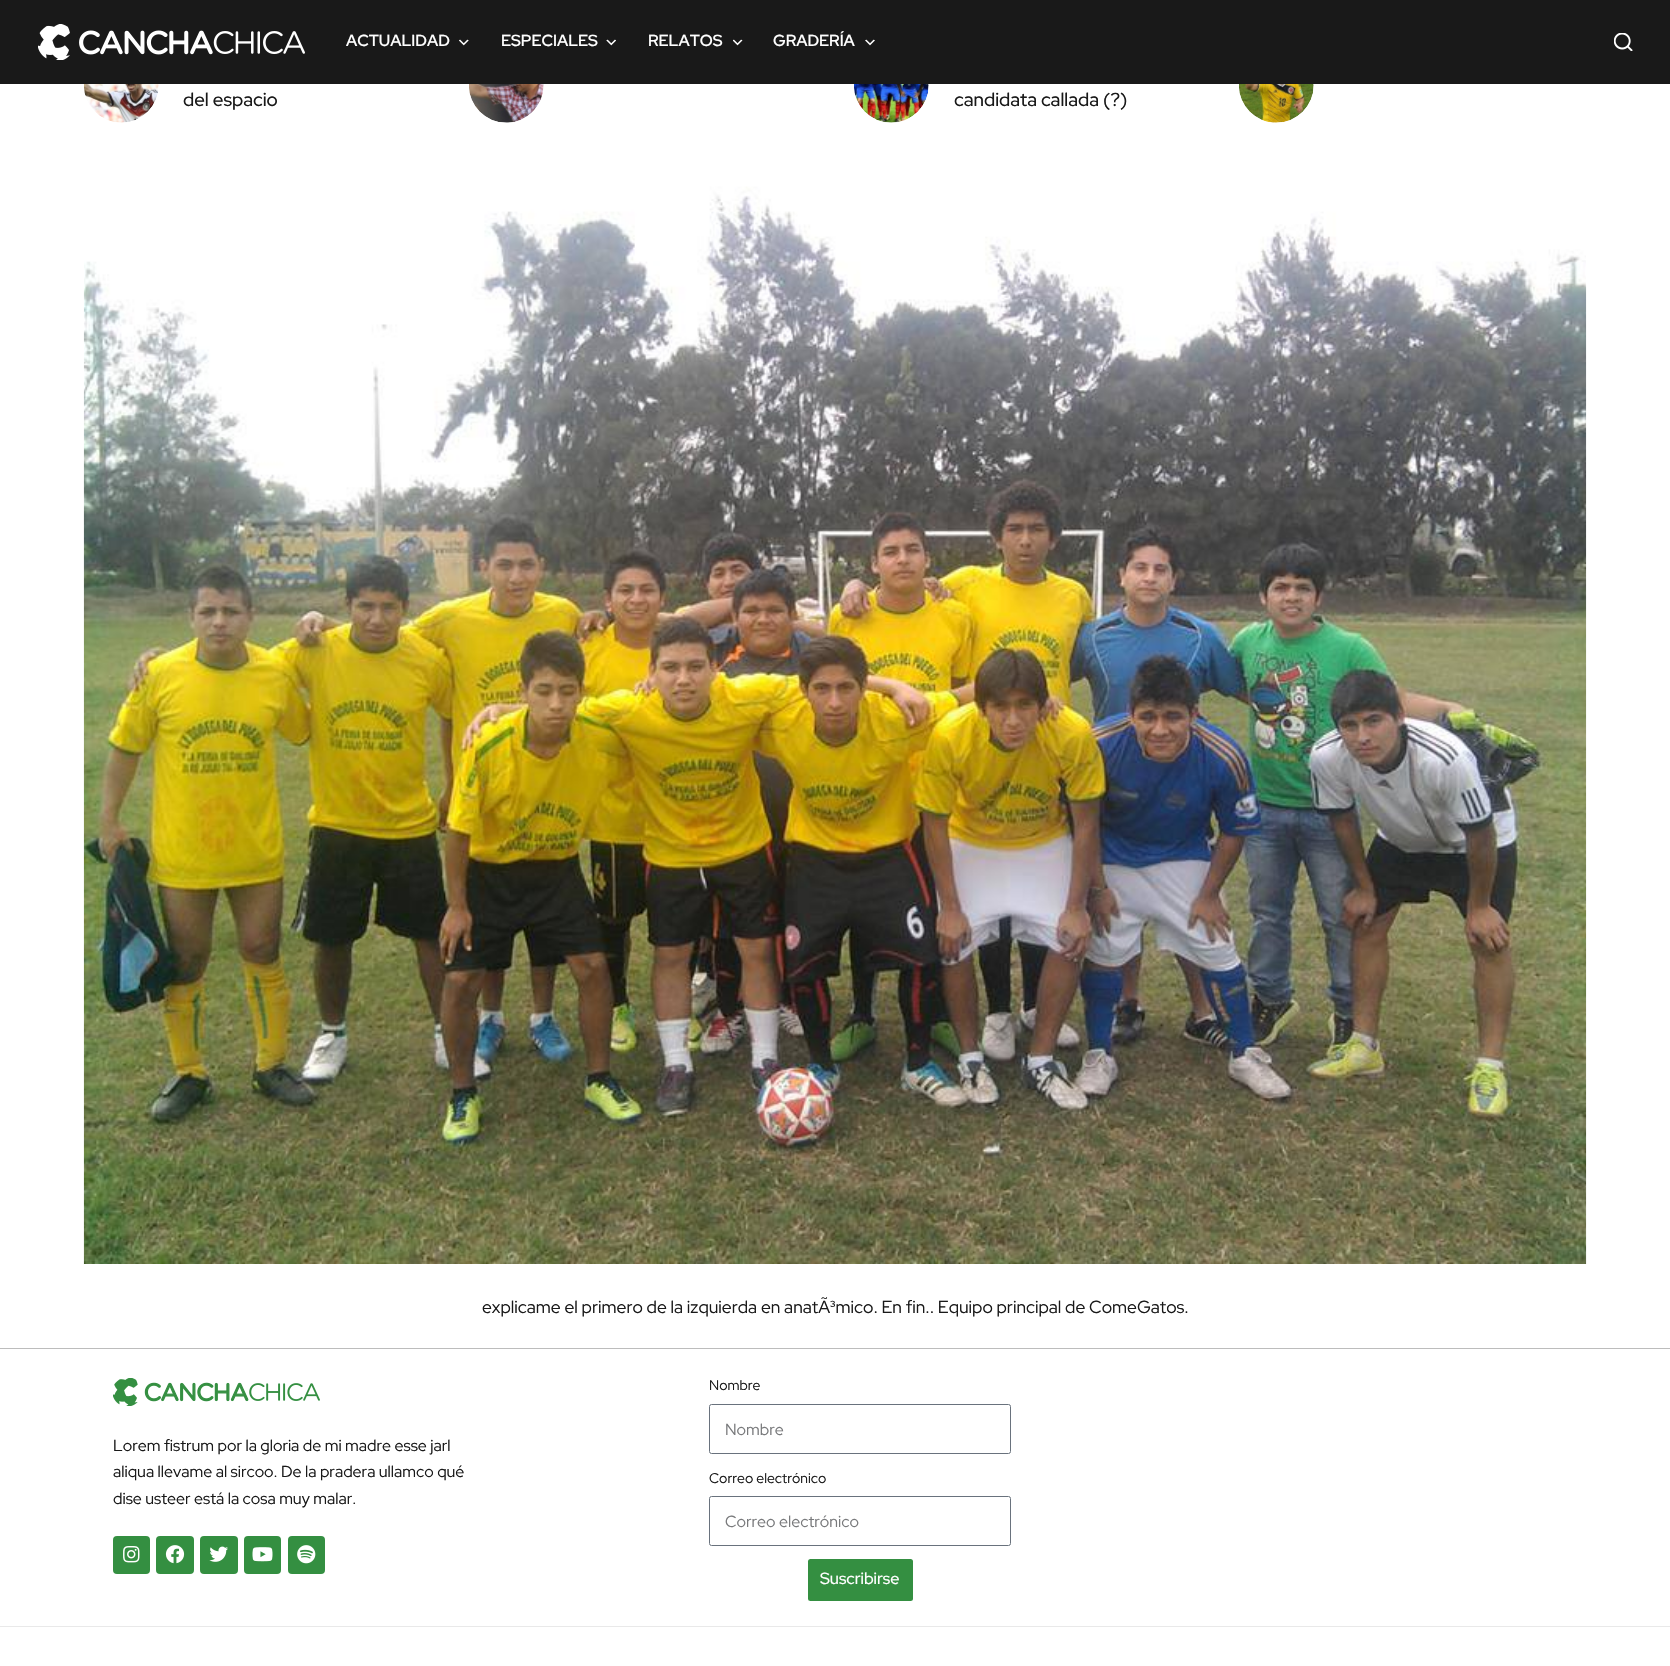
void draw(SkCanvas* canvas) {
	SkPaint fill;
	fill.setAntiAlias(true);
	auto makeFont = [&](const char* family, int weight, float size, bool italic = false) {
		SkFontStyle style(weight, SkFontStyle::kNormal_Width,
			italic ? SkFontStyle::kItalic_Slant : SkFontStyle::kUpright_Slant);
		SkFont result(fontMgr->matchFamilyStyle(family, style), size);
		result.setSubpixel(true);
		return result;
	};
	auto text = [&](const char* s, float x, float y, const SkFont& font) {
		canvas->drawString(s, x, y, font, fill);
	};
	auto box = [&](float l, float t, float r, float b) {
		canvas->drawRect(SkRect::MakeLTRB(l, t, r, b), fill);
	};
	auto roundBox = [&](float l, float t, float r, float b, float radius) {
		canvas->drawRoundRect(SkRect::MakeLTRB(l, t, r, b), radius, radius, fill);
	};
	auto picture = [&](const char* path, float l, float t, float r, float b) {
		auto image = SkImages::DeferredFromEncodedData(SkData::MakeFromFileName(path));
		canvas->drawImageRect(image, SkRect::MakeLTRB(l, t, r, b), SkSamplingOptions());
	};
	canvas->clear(0xFFFFFFFF);
	fill.setColor(0xFF191919);
	box(0, 0, 1670, 84);
	picture("image0.png", 38, 24, 305, 60);
	picture("image1.png", 459, 39, 469, 46);
	picture("image2.png", 606, 39, 616, 46);
	picture("image3.png", 733, 39, 743, 46);
	picture("image4.png", 865, 39, 875, 46);
	picture("image5.png", 1614, 33, 1633, 51);
	picture("image6.png", 84, 84, 159, 123);
	picture("image7.png", 469, 84, 544, 123);
	picture("image8.png", 854, 84, 929, 123);
	picture("image9.png", 1239, 84, 1314, 123);
	picture("image10.png", 83, 186, 1587, 1264);
	fill.setColor(0xFFBCBCBC);
	box(0, 1348, 1670, 1349);
	picture("image11.png", 113, 1378, 320, 1406);
	fill.setColor(0xFF348F41);
	roundBox(113, 1536, 150, 1574, 4);
	picture("image12.png", 123, 1546, 140, 1563);
	roundBox(156, 1536, 194, 1574, 4);
	picture("image13.png", 165, 1545, 185, 1564);
	roundBox(200, 1536, 238, 1574, 4);
	picture("image14.png", 209, 1546, 228, 1562);
	roundBox(244, 1536, 281, 1574, 4);
	picture("image15.png", 252, 1547, 273, 1562);
	roundBox(288, 1536, 325, 1574, 4);
	picture("image16.png", 297, 1545, 316, 1564);
	fill.setStyle(SkPaint::kStroke_Style);
	fill.setStrokeWidth(1);
	fill.setColor(0xFF69727D);
	canvas->drawRoundRect(SkRect::MakeLTRB(709.5f, 1404.5f, 1010.5f, 1453.5f), 2, 2, fill);
	canvas->drawRoundRect(SkRect::MakeLTRB(709.5f, 1496.5f, 1010.5f, 1545.5f), 2, 2, fill);
	fill.setStyle(SkPaint::kFill_Style);
	fill.setColor(0xFF348F41);
	roundBox(808, 1559, 913, 1601, 2.5f);
	fill.setColor(0xFFE9E9E9);
	box(0, 1626, 1670, 1627);
	auto font1 = makeFont("Red Hat Display", 600, 16);
	fill.setColor(0xFFFFFFFF);
	text("ACTUALIDAD", 346, 46, font1);
	text("ESPECIALES", 501, 46, font1);
	text("RELATOS", 648, 46, font1);
	text("GRADERÍA", 773, 46, font1);
	auto font2 = makeFont("Red Hat Display", 500, 18.75f);
	fill.setColor(0xFF191919);
	text("del espacio", 183, 106, font2);
	text("candidata callada (?)", 954, 106, font2);
	auto font3 = makeFont("Red Hat Display", 400, 17.5f);
	text("explicame el primero de la izquierda en anatÃ³mico. En fin.. Equipo principal de ComeGatos.", 482, 1313, font3);
	auto font4 = makeFont("Red Hat Display", 400, 16);
	text("Lorem fistrum por la gloria de mi madre esse jarl", 113, 1451, font4);
	text("aliqua llevame al sircoo. De la pradera ullamco qué", 113, 1477, font4);
	text("dise usteer está la cosa muy malar.", 113, 1504, font4);
	auto font5 = makeFont("Red Hat Display", 400, 14);
	text("Nombre", 709, 1390, font5);
	fill.setColor(0xFF797A7C);
	text("Nombre", 725, 1435, font4);
	fill.setColor(0xFF191919);
	text("Correo electrónico", 709, 1483, font5);
	fill.setColor(0xFF797A7C);
	text("Correo electrónico", 725, 1527, font4);
	auto font6 = makeFont("Red Hat Display", 500, 16.25f);
	fill.setColor(0xFFFFFFFF);
	text("Suscribirse", 820, 1584, font6);
}
